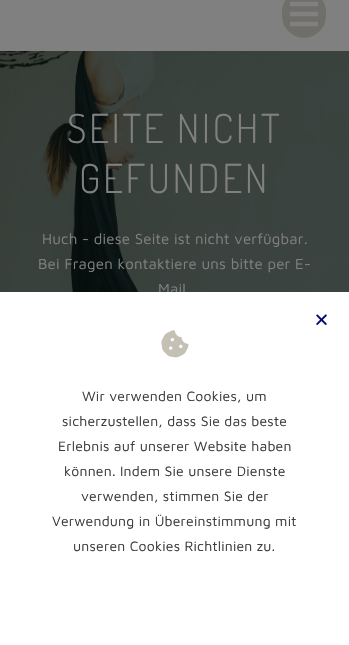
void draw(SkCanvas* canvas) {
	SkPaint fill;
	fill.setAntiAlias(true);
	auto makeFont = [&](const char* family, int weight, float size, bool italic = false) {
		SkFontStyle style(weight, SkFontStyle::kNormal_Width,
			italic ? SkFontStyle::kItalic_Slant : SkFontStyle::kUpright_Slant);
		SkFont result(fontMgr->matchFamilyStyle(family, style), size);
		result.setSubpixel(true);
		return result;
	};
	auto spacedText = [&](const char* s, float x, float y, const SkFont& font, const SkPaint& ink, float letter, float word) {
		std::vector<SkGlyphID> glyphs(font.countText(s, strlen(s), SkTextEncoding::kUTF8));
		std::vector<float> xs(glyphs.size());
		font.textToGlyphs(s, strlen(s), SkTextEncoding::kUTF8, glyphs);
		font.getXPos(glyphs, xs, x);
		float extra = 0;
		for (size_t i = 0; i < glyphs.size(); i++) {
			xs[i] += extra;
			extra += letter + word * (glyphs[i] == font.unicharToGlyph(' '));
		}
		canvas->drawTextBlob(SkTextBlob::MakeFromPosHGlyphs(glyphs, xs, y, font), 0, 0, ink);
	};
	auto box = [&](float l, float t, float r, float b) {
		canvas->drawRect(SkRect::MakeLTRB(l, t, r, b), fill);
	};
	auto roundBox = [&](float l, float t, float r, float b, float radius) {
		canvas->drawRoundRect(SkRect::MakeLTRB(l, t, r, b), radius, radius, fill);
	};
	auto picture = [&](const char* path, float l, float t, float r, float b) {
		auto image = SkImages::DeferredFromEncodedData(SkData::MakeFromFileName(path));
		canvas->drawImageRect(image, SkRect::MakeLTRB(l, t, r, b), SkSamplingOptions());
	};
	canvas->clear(0xFFFFFFFF);
	fill.setColor(0xFF808080);
	box(0, 0, 349, 51);
	fill.setColor(0xFF706E6B);
	roundBox(282, -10, 326, 38, 22);
	picture("image0.png", 290, 1, 318, 27);
	picture("image1.png", 0, 51, 349, 292);
	picture("image2.png", 316, 314, 327, 325);
	picture("image3.png", 161, 330, 189, 358);
	auto font1 = makeFont("Dosis", 300, 40);
	fill.setColor(0xFF808080);
	spacedText("SEITE NICHT", 67, 143, font1, fill, 2.5f, 0);
	spacedText("GEFUNDEN", 79, 193, font1, fill, 2.5f, 0);
	auto font2 = makeFont("Maven Pro", 400, 15);
	spacedText("Huch - diese Seite ist nicht verfügbar.", 42, 244, font2, fill, 0.2f, 0);
	spacedText("Bei Fragen kontaktiere uns bitte per E-", 38, 269, font2, fill, 0.2f, 0);
	spacedText("Mail", 158, 294, font2, fill, 0.2f, 0);
	fill.setColor(0xFFFFFFFF);
	box(159, 292, 185, 295);
	auto font3 = makeFont("Maven Pro", 400, 14);
	fill.setColor(0xFF3C3C3C);
	spacedText("Wir verwenden Cookies, um", 82, 401, font3, fill, 0.2f, 0);
	spacedText("sicherzustellen, dass Sie das beste", 62, 426, font3, fill, 0.2f, 0);
	spacedText("Erlebnis auf unserer Website haben", 58, 451, font3, fill, 0.2f, 0);
	spacedText("können. Indem Sie unsere Dienste", 64, 476, font3, fill, 0.2f, 0);
	spacedText("verwenden, stimmen Sie der", 81, 501, font3, fill, 0.2f, 0);
	spacedText("Verwendung in Übereinstimmung mit", 52, 526, font3, fill, 0.2f, 0);
	spacedText("unseren Cookies Richtlinien zu.", 73, 551, font3, fill, 0.2f, 0);
}
